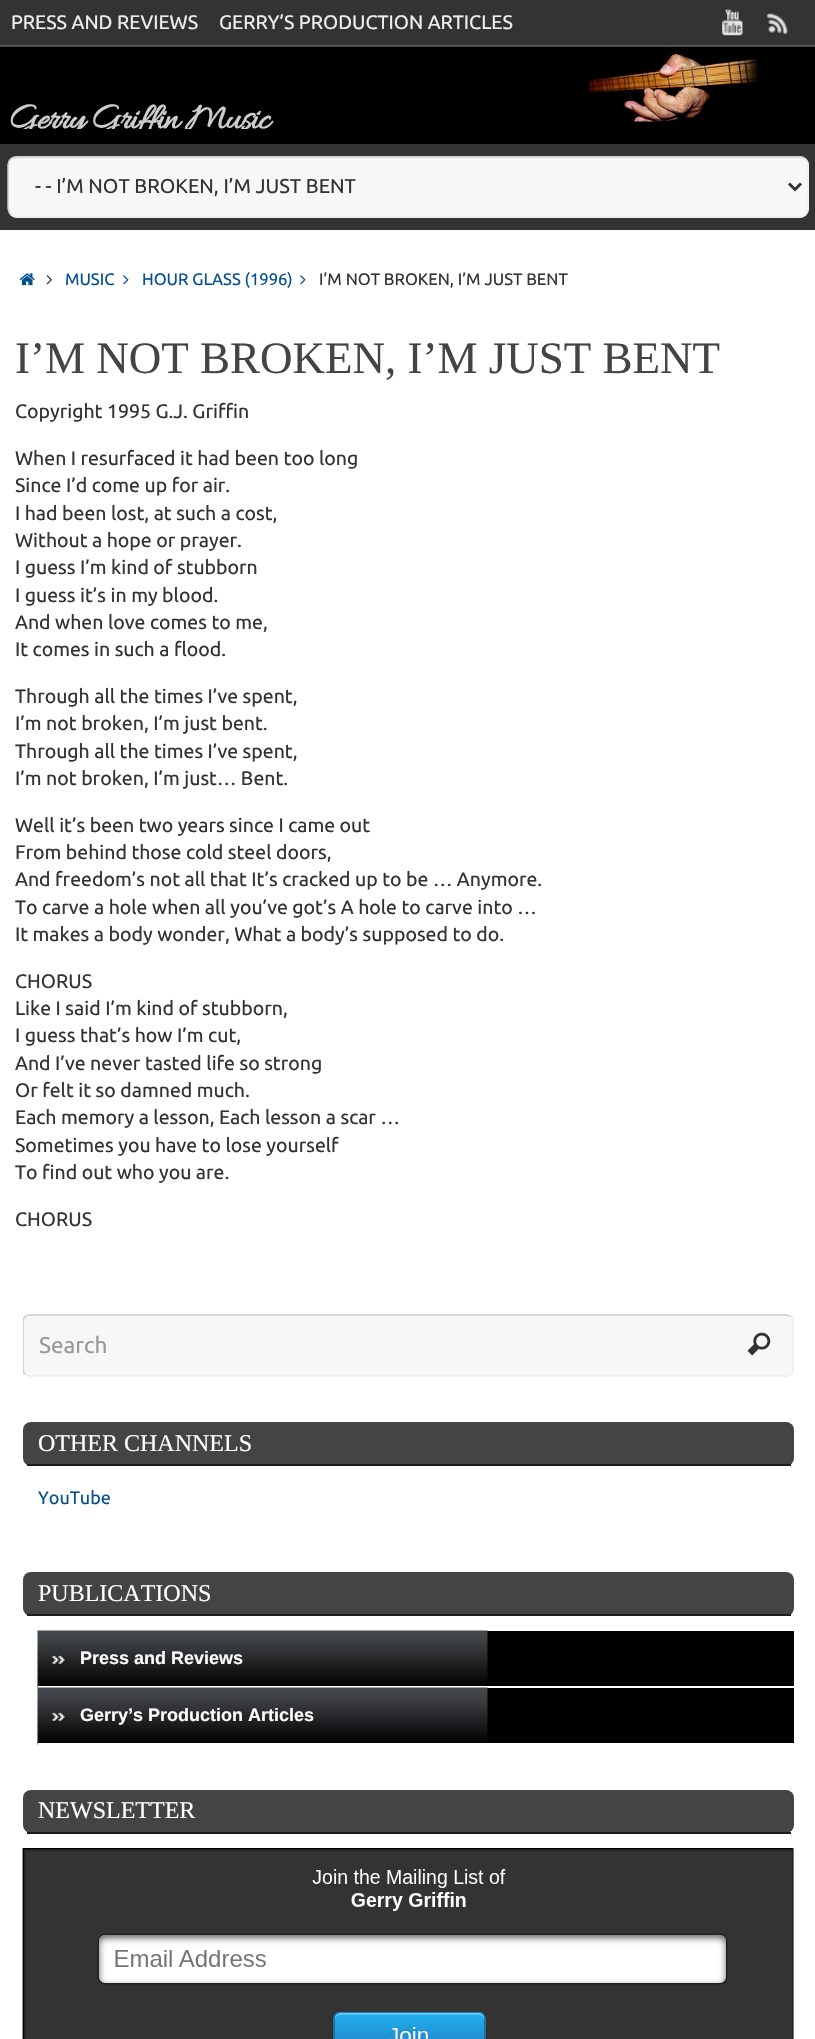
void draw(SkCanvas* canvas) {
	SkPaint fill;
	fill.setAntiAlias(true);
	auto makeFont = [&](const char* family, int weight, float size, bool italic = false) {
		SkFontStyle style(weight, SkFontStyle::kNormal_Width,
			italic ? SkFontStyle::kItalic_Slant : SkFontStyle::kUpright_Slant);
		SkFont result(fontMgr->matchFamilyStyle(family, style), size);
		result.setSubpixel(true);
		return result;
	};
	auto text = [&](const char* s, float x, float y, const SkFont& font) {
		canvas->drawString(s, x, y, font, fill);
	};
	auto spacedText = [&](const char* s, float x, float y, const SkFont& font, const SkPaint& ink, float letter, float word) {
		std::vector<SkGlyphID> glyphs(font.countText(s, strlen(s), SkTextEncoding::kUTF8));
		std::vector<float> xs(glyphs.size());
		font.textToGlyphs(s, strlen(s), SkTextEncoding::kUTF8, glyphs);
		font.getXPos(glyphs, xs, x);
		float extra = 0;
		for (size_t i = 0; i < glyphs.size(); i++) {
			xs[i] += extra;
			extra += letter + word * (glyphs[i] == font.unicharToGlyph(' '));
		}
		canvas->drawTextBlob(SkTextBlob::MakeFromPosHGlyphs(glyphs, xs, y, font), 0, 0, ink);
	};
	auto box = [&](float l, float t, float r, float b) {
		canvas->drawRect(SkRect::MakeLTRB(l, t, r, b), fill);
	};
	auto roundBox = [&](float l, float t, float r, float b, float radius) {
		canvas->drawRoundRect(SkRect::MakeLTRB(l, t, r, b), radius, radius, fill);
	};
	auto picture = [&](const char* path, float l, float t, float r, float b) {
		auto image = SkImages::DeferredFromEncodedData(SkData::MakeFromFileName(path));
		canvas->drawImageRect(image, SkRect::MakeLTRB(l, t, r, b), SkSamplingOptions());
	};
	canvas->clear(0xFFF7F7F7);
	fill.setColor(0xFF333333);
	box(0, 0, 815, 45);
	fill.setColor(0xFF5B5B5B);
	box(0, 45, 815, 47);
	picture("image0.png", 721, 9, 743, 37);
	picture("image1.png", 767, 13, 788, 36);
	fill.setColor(0xFF000000);
	box(0, 121, 815, 144);
	picture("image2.png", 0, 46, 815, 122);
	fill.setColor(0xFF333333);
	box(0, 144, 815, 230);
	fill.setColor(0xFFF7F7F7);
	roundBox(8, 156, 809, 218, 9);
	fill.setStyle(SkPaint::kStroke_Style);
	fill.setStrokeWidth(1.5f);
	fill.setColor(0xFFEEEEEE);
	canvas->drawPath(SkPathBuilder().moveTo(805.5f, 159).cubicTo(807, 160.5f, 808, 163, 808, 165).lineTo(808, 208.5f).cubicTo(808, 210.5f, 807, 213, 805.5f, 214.5f).cubicTo(804, 216, 801.5f, 217, 799.5f, 217).lineTo(16.5f, 217).cubicTo(14.5f, 217, 12, 216, 10.5f, 214.5f).detach(), fill);
	fill.setColor(0xFFCCCCCC);
	canvas->drawPath(SkPathBuilder().moveTo(10.5f, 214.5f).cubicTo(9, 213, 8.5f, 210.5f, 8, 208.5f).lineTo(8, 165).cubicTo(8, 163, 9, 160.5f, 10.5f, 159).cubicTo(12, 157.5f, 14.5f, 157, 16.5f, 157).lineTo(799.5f, 157).cubicTo(801.5f, 157, 804, 157.5f, 805.5f, 159).detach(), fill);
	fill.setStrokeWidth(3);
	fill.setColor(0xFF333333);
	canvas->drawPath(SkPathBuilder().moveTo(789, 183.5f).lineTo(795, 189.5f).lineTo(801, 183.5f).detach(), fill);
	fill.setStyle(SkPaint::kFill_Style);
	fill.setColor(0xFFFFFFFF);
	box(0, 231, 815, 2039);
	picture("image3.png", 19, 273, 35, 286);
	picture("image4.png", 46, 275, 52, 285);
	picture("image5.png", 123, 275, 129, 285);
	picture("image5.png", 300, 275, 306, 285);
	fill.setColor(0xFFF7F7F7);
	roundBox(23, 1314, 794, 1377, 8);
	fill.setStyle(SkPaint::kStroke_Style);
	fill.setStrokeWidth(1.5f);
	fill.setColor(0xFFEEEEEE);
	canvas->drawPath(SkPathBuilder().moveTo(791, 1316.5f).cubicTo(792, 1318, 793, 1319.5f, 793, 1321.5f).lineTo(793, 1369.5f).cubicTo(793, 1371.5f, 792, 1373, 791, 1374.5f).cubicTo(789.5f, 1375.5f, 788, 1376, 786, 1376).lineTo(30, 1376).cubicTo(28, 1376, 26.5f, 1375.5f, 25, 1374.5f).detach(), fill);
	canvas->save();
	canvas->clipRect(SkRect::MakeLTRB(23, 1314, 794, 1377));
	fill.setColor(0xFFCCCCCC);
	canvas->drawPath(SkPathBuilder().moveTo(25, 1374.5f).cubicTo(24, 1373, 23, 1371.5f, 23, 1369.5f).lineTo(23, 1321.5f).cubicTo(23, 1319.5f, 24, 1318, 25, 1316.5f).cubicTo(26.5f, 1315.5f, 28, 1315, 30, 1315).lineTo(786, 1315).cubicTo(788, 1315, 789.5f, 1315.5f, 791, 1316.5f).detach(), fill);
	canvas->restore();
	picture("image6.png", 747, 1332, 771, 1356);
	fill.setStyle(SkPaint::kFill_Style);
	fill.setColor(0xFF444444);
	roundBox(23, 1422, 794, 1466, 8);
	fill.setColor(0xFF1C1C1C);
	box(27, 1464, 791, 1466);
	fill.setColor(0xFF444444);
	roundBox(23, 1572, 794, 1616, 8);
	fill.setColor(0xFF1C1C1C);
	box(27, 1614, 791, 1616);
	fill.setColor(0xFF000000);
	box(485, 1631, 794, 1686);
	picture("image7.png", 37, 1630, 488, 1688);
	fill.setColor(0xFFFFFFFF);
	box(38, 1686, 488, 1688);
	fill.setColor(0xFF000000);
	box(485, 1688, 794, 1743);
	picture("image8.png", 37, 1687, 488, 1745);
	fill.setColor(0xFFFFFFFF);
	box(38, 1743, 488, 1745);
	fill.setColor(0xFF444444);
	roundBox(23, 1790, 794, 1833, 8);
	fill.setColor(0xFF1C1C1C);
	box(27, 1832, 791, 1834);
	picture("image9.png", 22, 1848, 794, 2039);
	auto font1 = makeFont("Ubuntu", 400, 19.5f);
	fill.setColor(0xFFEEEEEE);
	text("PRESS AND REVIEWS", 11, 29, font1);
	text("GERRY’S PRODUCTION ARTICLES", 219, 29, font1);
	canvas->save();
	canvas->clipRect(SkRect::MakeLTRB(0, 47, 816, 129));
	auto font2 = makeFont("Allura", 700, 37.5f);
	fill.setColor(0xFFCCCCCC);
	spacedText("Gerry Griffin Music", 8, 128, font2, fill, -1.1f, 0);
	canvas->restore();
	auto font3 = makeFont("Ubuntu", 400, 20);
	fill.setColor(0xFF333333);
	text("- - I’M NOT BROKEN, I’M JUST BENT", 35, 193, font3);
	auto font4 = makeFont("Ubuntu", 400, 16.6f);
	fill.setColor(0xFF045191);
	text("MUSIC", 65, 285, font4);
	text("HOUR GLASS (1996)", 142, 285, font4);
	fill.setColor(0xFF333333);
	text("I’M NOT BROKEN, I’M JUST BENT", 319, 285, font4);
	auto font5 = makeFont("Liberation Serif", 400, 45);
	fill.setColor(0xFF444444);
	text("I’M NOT BROKEN, I’M JUST BENT", 15, 373, font5);
	fill.setColor(0xFF333333);
	text("Copyright 1995 G.J. Griffin", 15, 418, font1);
	text("When I resurfaced it had been too long", 15, 465, font1);
	text("Since I’d come up for air.", 15, 492, font1);
	text("I had been lost, at such a cost,", 15, 520, font1);
	text("Without a hope or prayer.", 15, 547, font1);
	text("I guess I’m kind of stubborn", 15, 574, font1);
	text("I guess it’s in my blood.", 15, 602, font1);
	text("And when love comes to me,", 15, 629, font1);
	text("It comes in such a flood.", 15, 656, font1);
	text("Through all the times I’ve spent,", 15, 703, font1);
	text("I’m not broken, I’m just bent.", 15, 730, font1);
	text("Through all the times I’ve spent,", 15, 758, font1);
	text("I’m not broken, I’m just… Bent.", 15, 785, font1);
	text("Well it’s been two years since I came out", 15, 832, font1);
	text("From behind those cold steel doors,", 15, 859, font1);
	text("And freedom’s not all that It’s cracked up to be … Anymore.", 15, 886, font1);
	text("To carve a hole when all you’ve got’s A hole to carve into …", 15, 914, font1);
	text("It makes a body wonder, What a body’s supposed to do.", 15, 941, font1);
	text("CHORUS", 15, 988, font1);
	text("Like I said I’m kind of stubborn,", 15, 1015, font1);
	text("I guess that’s how I’m cut,", 15, 1042, font1);
	text("And I’ve never tasted life so strong", 15, 1070, font1);
	text("Or felt it so damned much.", 15, 1097, font1);
	text("Each memory a lesson, Each lesson a scar …", 15, 1124, font1);
	text("Sometimes you have to lose yourself", 15, 1152, font1);
	text("To find out who you are.", 15, 1179, font1);
	text("CHORUS", 15, 1226, font1);
	auto font6 = makeFont("Ubuntu", 400, 22.5f);
	fill.setColor(0xFF999999);
	text("Search", 39, 1353, font6);
	auto font7 = makeFont("Liberation Serif", 400, 24);
	fill.setColor(0xFFFFFFFF);
	text("OTHER CHANNELS", 38, 1451, font7);
	auto font8 = makeFont("Ubuntu", 400, 18);
	fill.setColor(0xFF045191);
	text("YouTube", 38, 1504, font8);
	fill.setColor(0xFFFFFFFF);
	text("PUBLICATIONS", 38, 1601, font7);
	auto font9 = makeFont("Liberation Sans", 700, 18);
	text("Press and Reviews", 80, 1664, font9);
	text("Gerry’s Production Articles", 80, 1721, font9);
	text("NEWSLETTER", 38, 1818, font7);
}
